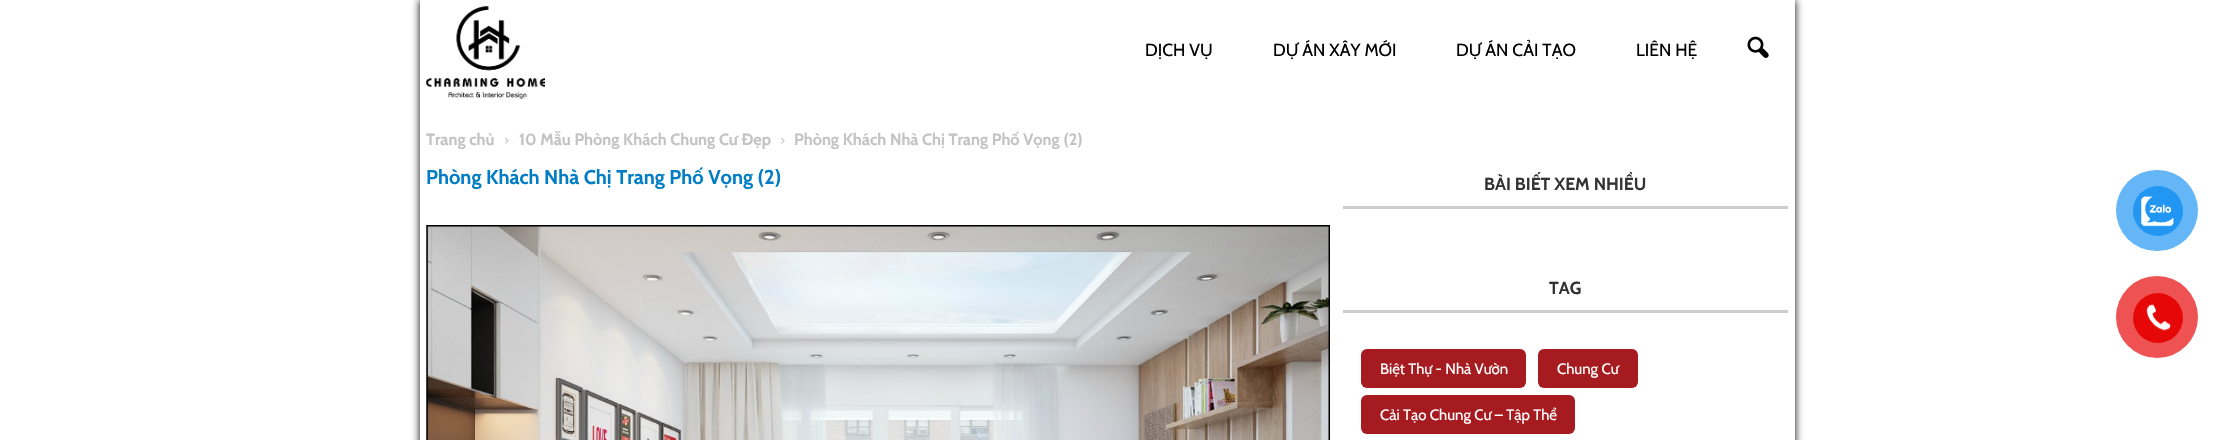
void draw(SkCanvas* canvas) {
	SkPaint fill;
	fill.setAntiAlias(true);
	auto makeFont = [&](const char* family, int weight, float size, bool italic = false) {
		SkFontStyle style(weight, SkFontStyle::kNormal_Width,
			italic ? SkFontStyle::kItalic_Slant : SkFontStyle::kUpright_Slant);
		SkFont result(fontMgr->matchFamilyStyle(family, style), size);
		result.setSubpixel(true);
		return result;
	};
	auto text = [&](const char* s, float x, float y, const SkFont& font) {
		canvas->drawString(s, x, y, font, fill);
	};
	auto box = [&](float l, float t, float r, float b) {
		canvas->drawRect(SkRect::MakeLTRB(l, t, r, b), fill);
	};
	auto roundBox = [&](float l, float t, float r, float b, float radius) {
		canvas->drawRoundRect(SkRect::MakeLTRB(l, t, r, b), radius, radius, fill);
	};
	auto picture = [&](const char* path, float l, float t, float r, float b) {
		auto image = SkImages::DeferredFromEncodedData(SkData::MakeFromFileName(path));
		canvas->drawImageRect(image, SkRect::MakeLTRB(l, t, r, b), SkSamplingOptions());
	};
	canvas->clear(0xFFFFFFFF);
	canvas->save();
	canvas->clipPath(SkPathBuilder(SkPathFillType::kEvenOdd).moveTo(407, 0).lineTo(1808, 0).lineTo(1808, 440).lineTo(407, 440).close().moveTo(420, 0).lineTo(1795, 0).lineTo(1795, 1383).lineTo(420, 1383).close().detach(), true);
	fill.setColor(0xFF000000);
	fill.setMaskFilter(SkMaskFilter::MakeBlur(kNormal_SkBlurStyle, 4));
	canvas->drawRect(SkRect::MakeLTRB(420, 0, 1795, 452), fill);
	fill.setMaskFilter(nullptr);
	canvas->restore();
	picture("image0.png", 426, 6, 545, 99);
	picture("image1.png", 1747, 36, 1769, 58);
	picture("image2.png", 505, 137, 509, 144);
	picture("image3.png", 781, 137, 785, 144);
	picture("image4.png", 426, 225, 1330, 440);
	fill.setColor(0xFFCCCCCC);
	box(1343, 206, 1788, 209);
	box(1343, 310, 1788, 313);
	fill.setColor(0xFFA51B1F);
	roundBox(1361, 349, 1526, 388, 6);
	roundBox(1538, 349, 1638, 388, 6);
	roundBox(1361, 395, 1575, 434, 6);
	fill.setColor(0xFF64B6F7);
	roundBox(2116, 170, 2198, 251, 40.5f);
	fill.setColor(0xFF2196F3);
	canvas->drawCircle(2158, 211, 25, fill);
	picture("image5.png", 2141, 196, 2174, 227);
	fill.setColor(0xFFEE5252);
	canvas->drawCircle(2157, 317, 41, fill);
	fill.setColor(0xFFE60808);
	canvas->drawCircle(2158, 318, 25, fill);
	picture("image6.png", 2146, 304, 2171, 331);
	auto font1 = makeFont("Cabin", 400, 17.5f);
	fill.setColor(0xFF000000);
	text("DỊCH VỤ", 1145, 56, font1);
	text("DỰ ÁN XÂY MỚI", 1273, 56, font1);
	text("DỰ ÁN CẢI TẠO", 1456, 56, font1);
	text("LIÊN HỆ", 1636, 56, font1);
	auto font2 = makeFont("Cabin", 700, 16.25f);
	fill.setColor(0xFFC3C3C3);
	text("Trang chủ", 426, 145, font2);
	text("10 Mẫu Phòng Khách Chung Cư Đẹp", 519, 145, font2);
	text("Phòng Khách Nhà Chị Trang Phố Vọng (2)", 794, 145, font2);
	auto font3 = makeFont("Cabin", 700, 20);
	fill.setColor(0xFF007DC4);
	text("Phòng Khách Nhà Chị Trang Phố Vọng (2)", 426, 184, font3);
	auto font4 = makeFont("Cabin", 700, 17.5f);
	fill.setColor(0xFF333333);
	text("BÀI BIẾT XEM NHIỀU", 1484, 190, font4);
	text("TAG", 1549, 294, font4);
	auto font5 = makeFont("Cabin", 400, 15);
	fill.setColor(0xFFFFFFFF);
	text("Biệt Thự - Nhà Vườn", 1380, 374, font5);
	text("Chung Cư", 1557, 374, font5);
	text("Cải Tạo Chung Cư – Tập Thể", 1380, 420, font5);
}
